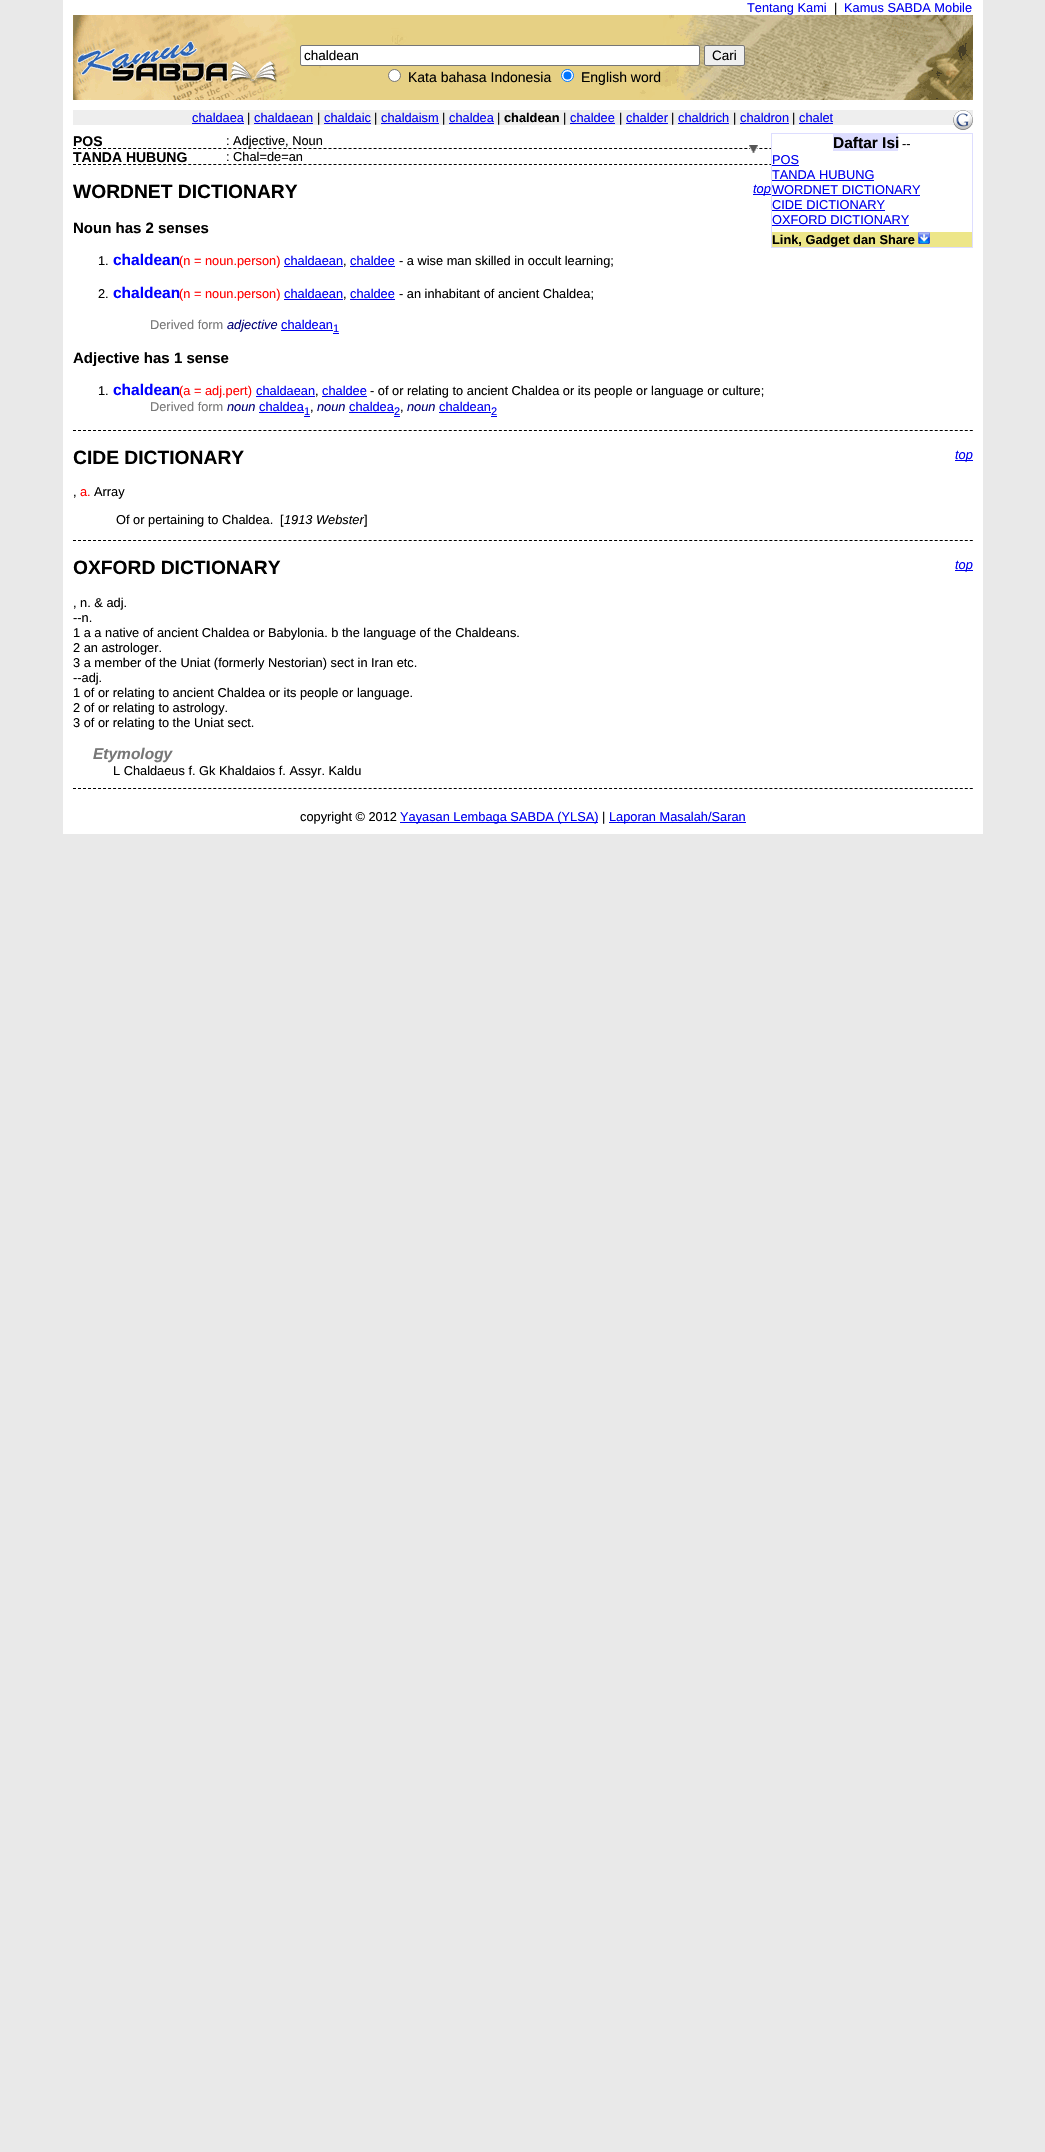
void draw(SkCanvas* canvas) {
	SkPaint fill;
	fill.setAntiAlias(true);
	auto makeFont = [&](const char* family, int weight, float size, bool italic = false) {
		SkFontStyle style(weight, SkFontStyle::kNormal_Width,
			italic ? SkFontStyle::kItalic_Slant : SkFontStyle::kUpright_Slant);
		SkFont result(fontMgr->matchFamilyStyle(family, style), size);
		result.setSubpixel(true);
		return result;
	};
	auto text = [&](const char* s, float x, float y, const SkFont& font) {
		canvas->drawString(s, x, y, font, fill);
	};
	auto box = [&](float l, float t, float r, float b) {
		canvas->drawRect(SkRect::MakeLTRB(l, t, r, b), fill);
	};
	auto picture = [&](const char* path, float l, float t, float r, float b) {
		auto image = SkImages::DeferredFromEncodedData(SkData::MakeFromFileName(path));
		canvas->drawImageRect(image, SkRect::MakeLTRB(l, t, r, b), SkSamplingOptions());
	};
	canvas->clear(0xFFE9E9E9);
	fill.setColor(0xFFFFFFFF);
	box(63, 0, 983, 834);
	picture("image0.png", 73, 15, 973, 100);
	canvas->drawRoundRect(SkRect::MakeLTRB(300.5f, 45.5f, 699.5f, 65.5f), 1.5f, 1.5f, fill);
	fill.setStyle(SkPaint::kStroke_Style);
	fill.setStrokeWidth(1);
	fill.setColor(0xFF767676);
	canvas->drawRoundRect(SkRect::MakeLTRB(300.5f, 45.5f, 699.5f, 65.5f), 1.5f, 1.5f, fill);
	fill.setStyle(SkPaint::kFill_Style);
	fill.setColor(0xFFEFEFEF);
	canvas->drawRoundRect(SkRect::MakeLTRB(704.5f, 45.5f, 744.5f, 65.5f), 1.5f, 1.5f, fill);
	fill.setStyle(SkPaint::kStroke_Style);
	fill.setColor(0xFF767676);
	canvas->drawRoundRect(SkRect::MakeLTRB(704.5f, 45.5f, 744.5f, 65.5f), 1.5f, 1.5f, fill);
	fill.setStyle(SkPaint::kFill_Style);
	fill.setColor(0xFFFFFFFF);
	canvas->drawCircle(394.5f, 75.5f, 6, fill);
	fill.setStyle(SkPaint::kStroke_Style);
	fill.setColor(0xFF767676);
	canvas->drawCircle(394.5f, 75.5f, 6, fill);
	fill.setStyle(SkPaint::kFill_Style);
	fill.setColor(0xFFFFFFFF);
	canvas->drawCircle(567.5f, 75.5f, 6, fill);
	fill.setStyle(SkPaint::kStroke_Style);
	fill.setColor(0xFF0075FF);
	canvas->drawCircle(567.5f, 75.5f, 6, fill);
	fill.setStyle(SkPaint::kFill_Style);
	canvas->drawCircle(567.5f, 75.5f, 4, fill);
	fill.setColor(0xFFEEEEEE);
	box(73, 110, 973, 125);
	fill.setColor(0xFF0000EE);
	box(192, 123, 244, 124);
	box(254, 123, 313, 124);
	box(324, 123, 371, 124);
	box(381, 123, 439, 124);
	box(449, 123, 494, 124);
	box(570, 123, 615, 124);
	box(626, 123, 668, 124);
	box(678, 123, 729, 124);
	box(740, 123, 789, 124);
	box(799, 123, 833, 124);
	picture("image1.png", 953, 110, 973, 130);
	fill.setStyle(SkPaint::kStroke_Style);
	fill.setColor(0xFF000000);
	fill.setPathEffect(SkDashPathEffect::Make({{3, 2.01f}}, 0));
	canvas->drawPath(SkPathBuilder().moveTo(73, 148.5f).lineTo(973, 148.5f).detach(), fill);
	fill.setPathEffect(nullptr);
	fill.setPathEffect(SkDashPathEffect::Make({{3, 2.01f}}, 0));
	canvas->drawPath(SkPathBuilder().moveTo(73, 164.5f).lineTo(973, 164.5f).detach(), fill);
	fill.setPathEffect(nullptr);
	fill.setPathEffect(SkDashPathEffect::Make({{3, 2.01f}}, 0));
	canvas->drawPath(SkPathBuilder().moveTo(73, 430.5f).lineTo(973, 430.5f).detach(), fill);
	fill.setPathEffect(nullptr);
	fill.setStyle(SkPaint::kFill_Style);
	fill.setColor(0xFF0000EE);
	box(753, 194, 771, 195);
	box(284, 266, 343, 267);
	box(350, 266, 395, 267);
	box(284, 299, 343, 300);
	box(350, 299, 395, 300);
	box(281, 330, 333, 331);
	box(333, 333, 339, 334);
	box(256, 396, 315, 397);
	box(322, 396, 367, 397);
	box(259, 412, 304, 413);
	box(304, 416, 310, 417);
	box(349, 412, 394, 413);
	box(394, 416, 400, 417);
	box(439, 412, 491, 413);
	box(491, 416, 497, 417);
	fill.setStyle(SkPaint::kStroke_Style);
	fill.setColor(0xFF000000);
	fill.setPathEffect(SkDashPathEffect::Make({{3, 2.01f}}, 0));
	canvas->drawPath(SkPathBuilder().moveTo(73, 540.5f).lineTo(973, 540.5f).detach(), fill);
	fill.setPathEffect(nullptr);
	fill.setStyle(SkPaint::kFill_Style);
	fill.setColor(0xFF0000EE);
	box(955, 460, 973, 461);
	fill.setStyle(SkPaint::kStroke_Style);
	fill.setColor(0xFF000000);
	fill.setPathEffect(SkDashPathEffect::Make({{3, 2.01f}}, 0));
	canvas->drawPath(SkPathBuilder().moveTo(73, 788.5f).lineTo(973, 788.5f).detach(), fill);
	fill.setPathEffect(nullptr);
	fill.setStyle(SkPaint::kFill_Style);
	fill.setColor(0xFF0000EE);
	box(955, 570, 973, 571);
	picture("image2.png", 749, 145, 758, 153);
	fill.setColor(0xFFFFFFFF);
	box(772, 148, 972, 165);
	fill.setStyle(SkPaint::kStroke_Style);
	fill.setColor(0xFFDDDDFF);
	canvas->drawRect(SkRect::MakeLTRB(771.5f, 133.5f, 972.5f, 247.5f), fill);
	fill.setStyle(SkPaint::kFill_Style);
	box(833, 134, 898, 151);
	fill.setColor(0xFF0000EE);
	box(772, 165, 799, 166);
	box(772, 180, 874, 181);
	box(772, 195, 920, 196);
	box(772, 210, 885, 211);
	box(772, 225, 909, 226);
	fill.setColor(0xFFEDE689);
	box(772, 232, 972, 247);
	picture("image3.png", 918, 232, 930, 244);
	fill.setColor(0xFF0000EE);
	box(400, 822, 598, 823);
	box(609, 822, 746, 823);
	auto font1 = makeFont("Liberation Sans", 400, 12.8f);
	text("Tentang Kami", 747, 12, font1);
	fill.setColor(0xFF000000);
	text("|", 834, 12, font1);
	fill.setColor(0xFF0000EE);
	text("Kamus SABDA Mobile", 844, 12, font1);
	auto font2 = makeFont("Liberation Sans", 400, 13.5f);
	fill.setColor(0xFF000000);
	text("chaldean", 304, 60, font2);
	text("Cari", 712, 60, font2);
	auto font3 = makeFont("Liberation Sans", 400, 14);
	text("Kata bahasa Indonesia", 408, 82, font3);
	text("English word", 581, 82, font3);
	fill.setColor(0xFF0000EE);
	text("chaldaea", 192, 122, font1);
	fill.setColor(0xFF000000);
	text("|", 247, 122, font1);
	fill.setColor(0xFF0000EE);
	text("chaldaean", 254, 122, font1);
	fill.setColor(0xFF000000);
	text("|", 317, 122, font1);
	fill.setColor(0xFF0000EE);
	text("chaldaic", 324, 122, font1);
	fill.setColor(0xFF000000);
	text("|", 374, 122, font1);
	fill.setColor(0xFF0000EE);
	text("chaldaism", 381, 122, font1);
	fill.setColor(0xFF000000);
	text("|", 442, 122, font1);
	fill.setColor(0xFF0000EE);
	text("chaldea", 449, 122, font1);
	fill.setColor(0xFF000000);
	text("|", 497, 122, font1);
	auto font4 = makeFont("Liberation Sans", 700, 12.8f);
	text("chaldean", 504, 122, font4);
	text("|", 563, 122, font1);
	fill.setColor(0xFF0000EE);
	text("chaldee", 570, 122, font1);
	fill.setColor(0xFF000000);
	text("|", 619, 122, font1);
	fill.setColor(0xFF0000EE);
	text("chalder", 626, 122, font1);
	fill.setColor(0xFF000000);
	text("|", 671, 122, font1);
	fill.setColor(0xFF0000EE);
	text("chaldrich", 678, 122, font1);
	fill.setColor(0xFF000000);
	text("|", 733, 122, font1);
	fill.setColor(0xFF0000EE);
	text("chaldron", 740, 122, font1);
	fill.setColor(0xFF000000);
	text("|", 792, 122, font1);
	fill.setColor(0xFF0000EE);
	text("chalet", 799, 122, font1);
	auto font5 = makeFont("Liberation Sans", 700, 14);
	fill.setColor(0xFF000000);
	text("POS", 73, 146, font5);
	text(": Adjective, Noun", 226, 145, font1);
	text("TANDA HUBUNG", 73, 162, font5);
	text(": Chal=de=an", 226, 161, font1);
	auto font6 = makeFont("Liberation Sans", 700, 19.25f);
	text("WORDNET DICTIONARY", 73, 198, font6);
	auto font7 = makeFont("Liberation Sans", 400, 12.8f, true);
	fill.setColor(0xFF0000EE);
	text("top", 753, 193, font7);
	auto font8 = makeFont("Liberation Sans", 700, 15);
	fill.setColor(0xFF000000);
	text("Noun has 2 senses", 73, 233, font8);
	text("1.", 98, 265, font1);
	auto font9 = makeFont("Liberation Sans", 700, 15.5f);
	fill.setColor(0xFF0000FF);
	text("chaldean", 113, 265, font9);
	fill.setColor(0xFFFF0000);
	text("(n = noun.person)", 179, 265, font1);
	fill.setColor(0xFF0000EE);
	text("chaldaean", 284, 265, font1);
	fill.setColor(0xFF000000);
	text(",", 343, 265, font1);
	fill.setColor(0xFF0000EE);
	text("chaldee", 350, 265, font1);
	fill.setColor(0xFF000000);
	text("- a wise man skilled in occult learning;", 399, 265, font1);
	text("2.", 98, 298, font1);
	fill.setColor(0xFF0000FF);
	text("chaldean", 113, 298, font9);
	fill.setColor(0xFFFF0000);
	text("(n = noun.person)", 179, 298, font1);
	fill.setColor(0xFF0000EE);
	text("chaldaean", 284, 298, font1);
	fill.setColor(0xFF000000);
	text(",", 343, 298, font1);
	fill.setColor(0xFF0000EE);
	text("chaldee", 350, 298, font1);
	fill.setColor(0xFF000000);
	text("- an inhabitant of ancient Chaldea;", 399, 298, font1);
	fill.setColor(0xFF777777);
	text("Derived form", 150, 329, font1);
	fill.setColor(0xFF000077);
	text("adjective", 227, 329, font7);
	fill.setColor(0xFF0000EE);
	text("chaldean", 281, 329, font1);
	auto font10 = makeFont("Liberation Sans", 400, 11);
	text("1", 333, 332, font10);
	fill.setColor(0xFF000000);
	text("Adjective has 1 sense", 73, 363, font8);
	text("1.", 98, 395, font1);
	fill.setColor(0xFF0000FF);
	text("chaldean", 113, 395, font9);
	fill.setColor(0xFFFF0000);
	text("(a = adj.pert)", 179, 395, font1);
	fill.setColor(0xFF0000EE);
	text("chaldaean", 256, 395, font1);
	fill.setColor(0xFF000000);
	text(",", 315, 395, font1);
	fill.setColor(0xFF0000EE);
	text("chaldee", 322, 395, font1);
	fill.setColor(0xFF000000);
	text("- of or relating to ancient Chaldea or its people or language or culture;", 370, 395, font1);
	fill.setColor(0xFF777777);
	text("Derived form", 150, 411, font1);
	fill.setColor(0xFF000077);
	text("noun", 227, 411, font7);
	fill.setColor(0xFF0000EE);
	text("chaldea", 259, 411, font1);
	text("1", 304, 415, font10);
	fill.setColor(0xFF000000);
	text(",", 310, 411, font1);
	fill.setColor(0xFF000077);
	text("noun", 317, 411, font7);
	fill.setColor(0xFF0000EE);
	text("chaldea", 349, 411, font1);
	text("2", 394, 415, font10);
	fill.setColor(0xFF000000);
	text(",", 400, 411, font1);
	fill.setColor(0xFF000077);
	text("noun", 407, 411, font7);
	fill.setColor(0xFF0000EE);
	text("chaldean", 439, 411, font1);
	text("2", 491, 415, font10);
	fill.setColor(0xFF000000);
	text("CIDE DICTIONARY", 73, 464, font6);
	fill.setColor(0xFF0000EE);
	text("top", 955, 459, font7);
	fill.setColor(0xFF000000);
	text(",", 73, 496, font1);
	fill.setColor(0xFFFF0000);
	text("a.", 80, 496, font1);
	fill.setColor(0xFF000000);
	text("Array", 94, 496, font1);
	text("Of or pertaining to Chaldea.", 116, 524, font1);
	text("[", 280, 524, font1);
	text("1913 Webster", 284, 524, font7);
	text("]", 364, 524, font1);
	text("OXFORD DICTIONARY", 73, 574, font6);
	fill.setColor(0xFF0000EE);
	text("top", 955, 569, font7);
	fill.setColor(0xFF000000);
	text(", n. & adj.", 73, 607, font1);
	text("--n.", 73, 622, font1);
	text("1 a a native of ancient Chaldea or Babylonia. b the language of the Chaldeans.", 73, 637, font1);
	text("2 an astrologer.", 73, 652, font1);
	text("3 a member of the Uniat (formerly Nestorian) sect in Iran etc.", 73, 667, font1);
	text("--adj.", 73, 682, font1);
	text("1 of or relating to ancient Chaldea or its people or language.", 73, 697, font1);
	text("2 of or relating to astrology.", 73, 712, font1);
	text("3 of or relating to the Uniat sect.", 73, 727, font1);
	auto font11 = makeFont("Liberation Sans", 700, 15.5f, true);
	fill.setColor(0xFF777777);
	text("Etymology", 93, 759, font11);
	fill.setColor(0xFF000000);
	text("L Chaldaeus f. Gk Khaldaios f. Assyr. Kaldu", 113, 775, font1);
	text("Daftar Isi", 833, 148, font9);
	text("--", 902, 148, font1);
	fill.setColor(0xFF0000EE);
	text("POS", 772, 164, font1);
	text("TANDA HUBUNG", 772, 179, font1);
	text("WORDNET DICTIONARY", 772, 194, font1);
	text("CIDE DICTIONARY", 772, 209, font1);
	text("OXFORD DICTIONARY", 772, 224, font1);
	fill.setColor(0xFF000000);
	text("Link, Gadget dan Share", 772, 244, font4);
	text("copyright © 2012", 300, 821, font1);
	fill.setColor(0xFF0000EE);
	text("Yayasan Lembaga SABDA (YLSA)", 400, 821, font1);
	fill.setColor(0xFF000000);
	text("|", 602, 821, font1);
	fill.setColor(0xFF0000EE);
	text("Laporan Masalah/Saran", 609, 821, font1);
}
